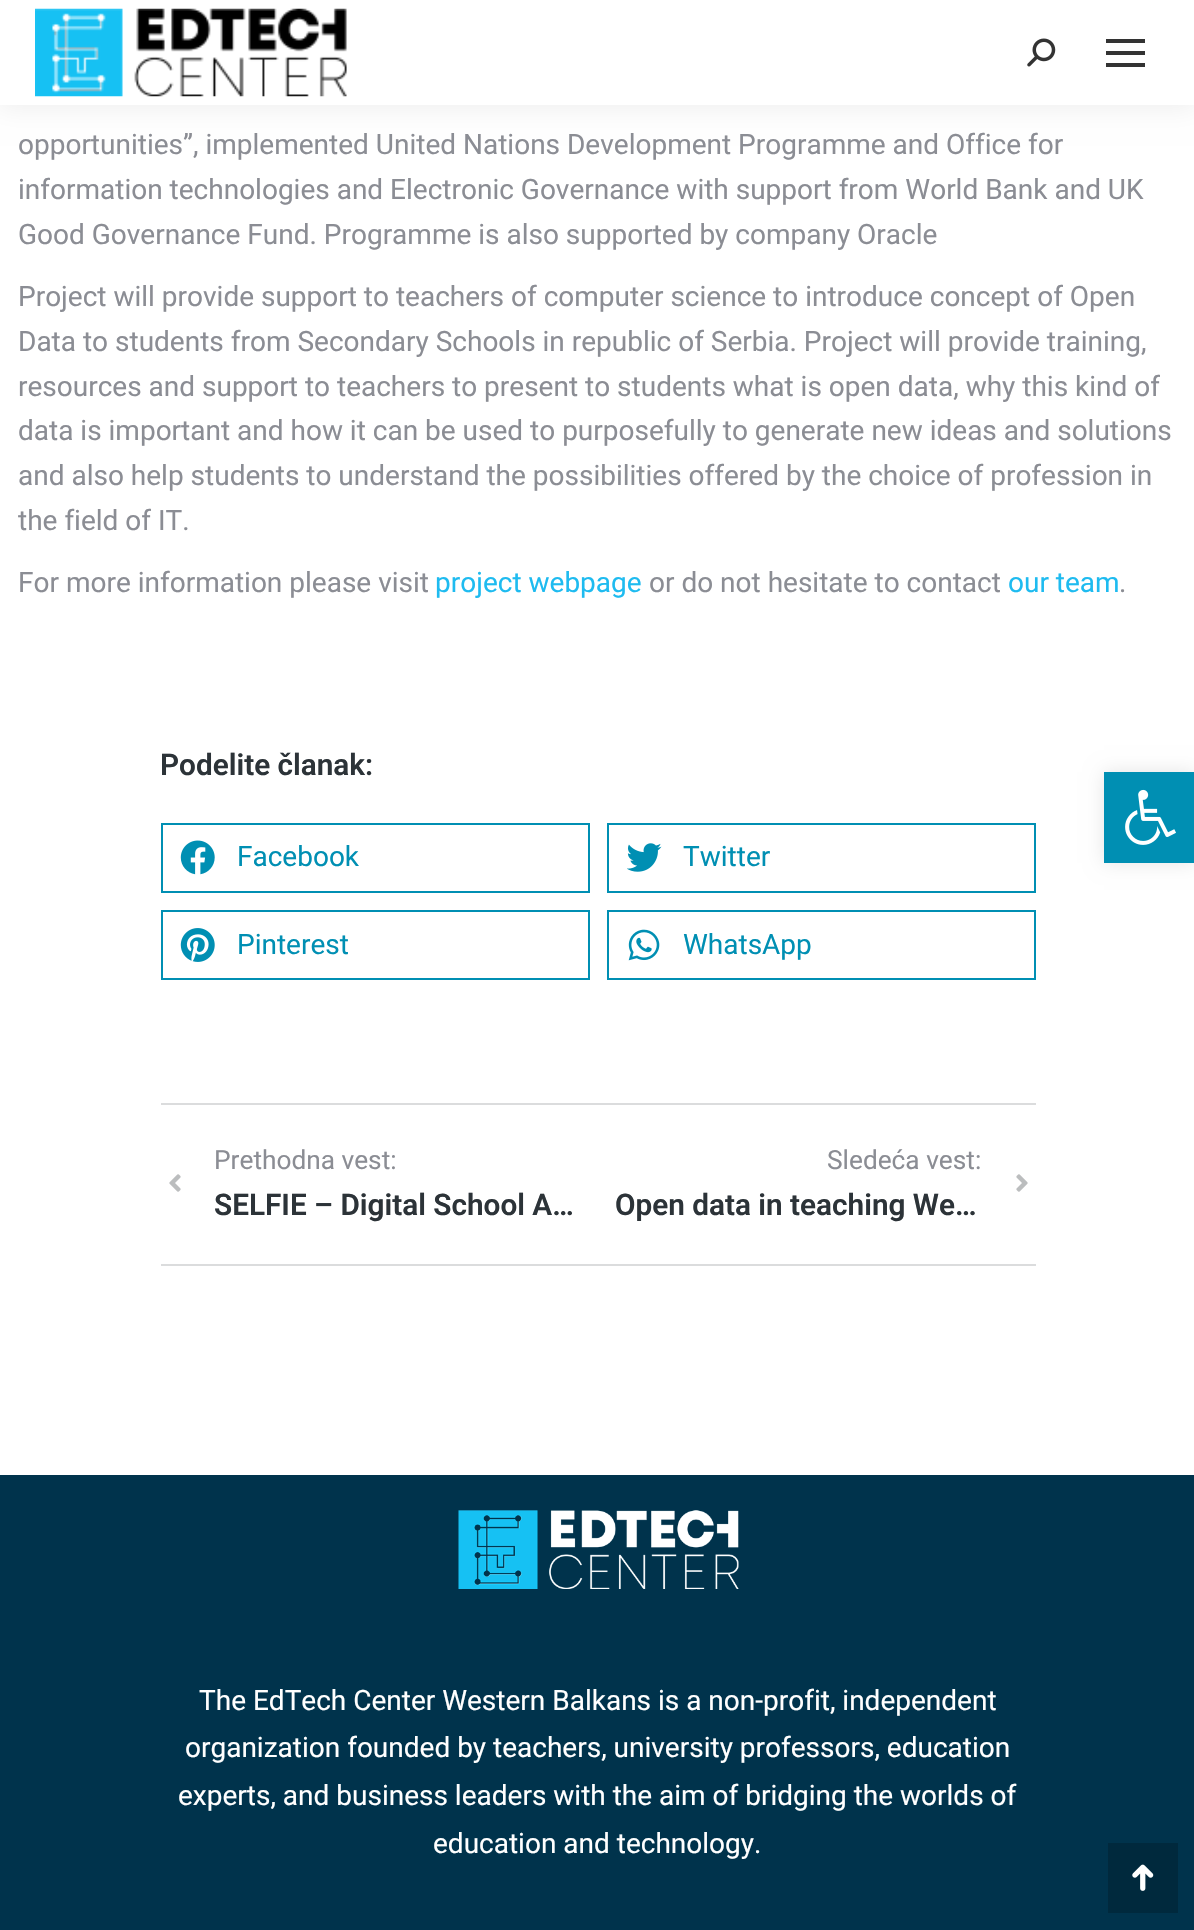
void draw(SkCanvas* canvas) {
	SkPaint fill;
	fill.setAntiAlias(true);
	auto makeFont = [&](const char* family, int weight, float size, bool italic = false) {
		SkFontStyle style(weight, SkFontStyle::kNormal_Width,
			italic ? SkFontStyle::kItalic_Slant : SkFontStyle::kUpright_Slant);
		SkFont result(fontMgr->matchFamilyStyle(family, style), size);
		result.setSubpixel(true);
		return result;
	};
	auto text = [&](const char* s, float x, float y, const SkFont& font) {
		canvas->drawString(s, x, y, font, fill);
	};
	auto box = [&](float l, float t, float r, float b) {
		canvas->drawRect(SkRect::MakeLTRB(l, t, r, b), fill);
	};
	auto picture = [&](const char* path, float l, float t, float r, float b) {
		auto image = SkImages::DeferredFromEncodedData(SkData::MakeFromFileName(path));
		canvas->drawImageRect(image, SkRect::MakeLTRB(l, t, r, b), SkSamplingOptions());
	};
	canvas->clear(0xFFFFFFFF);
	fill.setColor(0x12000000);
	fill.setMaskFilter(SkMaskFilter::MakeBlur(kNormal_SkBlurStyle, 13));
	canvas->drawRect(SkRect::MakeLTRB(-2, -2, 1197, 107), fill);
	fill.setMaskFilter(nullptr);
	fill.setColor(0xFFFFFFFF);
	box(0, 0, 1194, 105);
	picture("image0.png", 35, 8, 347, 97);
	picture("image1.png", 1027, 38, 1056, 67);
	fill.setColor(0xFF333333);
	box(1106, 39, 1145, 43);
	box(1106, 51, 1145, 55);
	box(1106, 63, 1145, 67);
	fill.setStyle(SkPaint::kStroke_Style);
	fill.setStrokeWidth(2);
	fill.setColor(0xFF008FB3);
	canvas->drawRect(SkRect::MakeLTRB(162, 824, 589, 892), fill);
	picture("image2.png", 180, 840, 215, 875);
	canvas->drawRect(SkRect::MakeLTRB(608, 824, 1035, 892), fill);
	picture("image3.png", 627, 843, 662, 872);
	canvas->drawRect(SkRect::MakeLTRB(162, 911, 589, 979), fill);
	picture("image4.png", 180, 928, 215, 962);
	canvas->drawRect(SkRect::MakeLTRB(608, 911, 1035, 979), fill);
	picture("image5.png", 628, 929, 660, 961);
	fill.setStyle(SkPaint::kFill_Style);
	fill.setColor(0xFFDBDCDD);
	box(161, 1103, 1036, 1105);
	box(161, 1264, 1036, 1266);
	picture("image6.png", 169, 1174, 181, 1192);
	picture("image7.png", 1016, 1174, 1028, 1192);
	fill.setColor(0xFF00334C);
	box(0, 1475, 1194, 1930);
	picture("image8.png", 458, 1510, 739, 1589);
	fill.setColor(0xFF00293D);
	box(1108, 1843, 1178, 1913);
	picture("image9.png", 1132, 1864, 1154, 1891);
	fill.setColor(0x1A000000);
	fill.setMaskFilter(SkMaskFilter::MakeBlur(kNormal_SkBlurStyle, 9));
	canvas->drawRect(SkRect::MakeLTRB(1104, 772, 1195, 863), fill);
	fill.setMaskFilter(nullptr);
	fill.setColor(0xFF008FB3);
	box(1104, 772, 1194, 863);
	picture("image10.png", 1125, 789, 1176, 845);
	auto font1 = makeFont("Roboto", 400, 28);
	fill.setColor(0xFF8B8D94);
	text("opportunities”, implemented United Nations Development Programme and Office for", 18, 154, font1);
	text("information technologies and Electronic Governance with support from World Bank and UK", 18, 199, font1);
	text("Good Governance Fund. Programme is also supported by company Oracle", 18, 244, font1);
	text("Project will provide support to teachers of computer science to introduce concept of Open", 18, 306, font1);
	text("Data to students from Secondary Schools in republic of Serbia. Project will provide training,", 18, 351, font1);
	text("resources and support to teachers to present to students what is open data, why this kind of", 18, 396, font1);
	text("data is important and how it can be used to purposefully to generate new ideas and solutions", 18, 440, font1);
	text("and also help students to understand the possibilities offered by the choice of profession in", 18, 485, font1);
	text("the field of IT.", 18, 530, font1);
	text("For more information please visit", 18, 592, font1);
	fill.setColor(0xFF1EBBF0);
	text("project webpage", 435, 592, font1);
	fill.setColor(0xFF8B8D94);
	text("or do not hesitate to contact", 649, 592, font1);
	fill.setColor(0xFF1EBBF0);
	text("our team", 1008, 592, font1);
	fill.setColor(0xFF8B8D94);
	text(".", 1119, 592, font1);
	auto font2 = makeFont("Roboto", 600, 29.75f);
	fill.setColor(0xFF2C3338);
	text("Podelite članak:", 160, 775, font2);
	fill.setColor(0xFF008FB3);
	text("Facebook", 237, 866, font1);
	text("Twitter", 683, 866, font1);
	text("Pinterest", 237, 954, font1);
	text("WhatsApp", 683, 954, font1);
	auto font3 = makeFont("Roboto", 400, 26.25f);
	fill.setColor(0xFF8B8D94);
	text("Prethodna vest:", 214, 1169, font3);
	fill.setColor(0xFF2C3338);
	text("SELFIE – Digital School A…", 214, 1215, font2);
	fill.setColor(0xFF8B8D94);
	text("Sledeća vest:", 827, 1169, font3);
	fill.setColor(0xFF2C3338);
	text("Open data in teaching We…", 615, 1215, font2);
	fill.setColor(0xFFFFFFFF);
	text("The EdTech Center Western Balkans is a non-profit, independent", 199, 1710, font1);
	text("organization founded by teachers, university professors, education", 185, 1757, font1);
	text("experts, and business leaders with the aim of bridging the worlds of", 178, 1805, font1);
	text("education and technology.", 433, 1853, font1);
}
